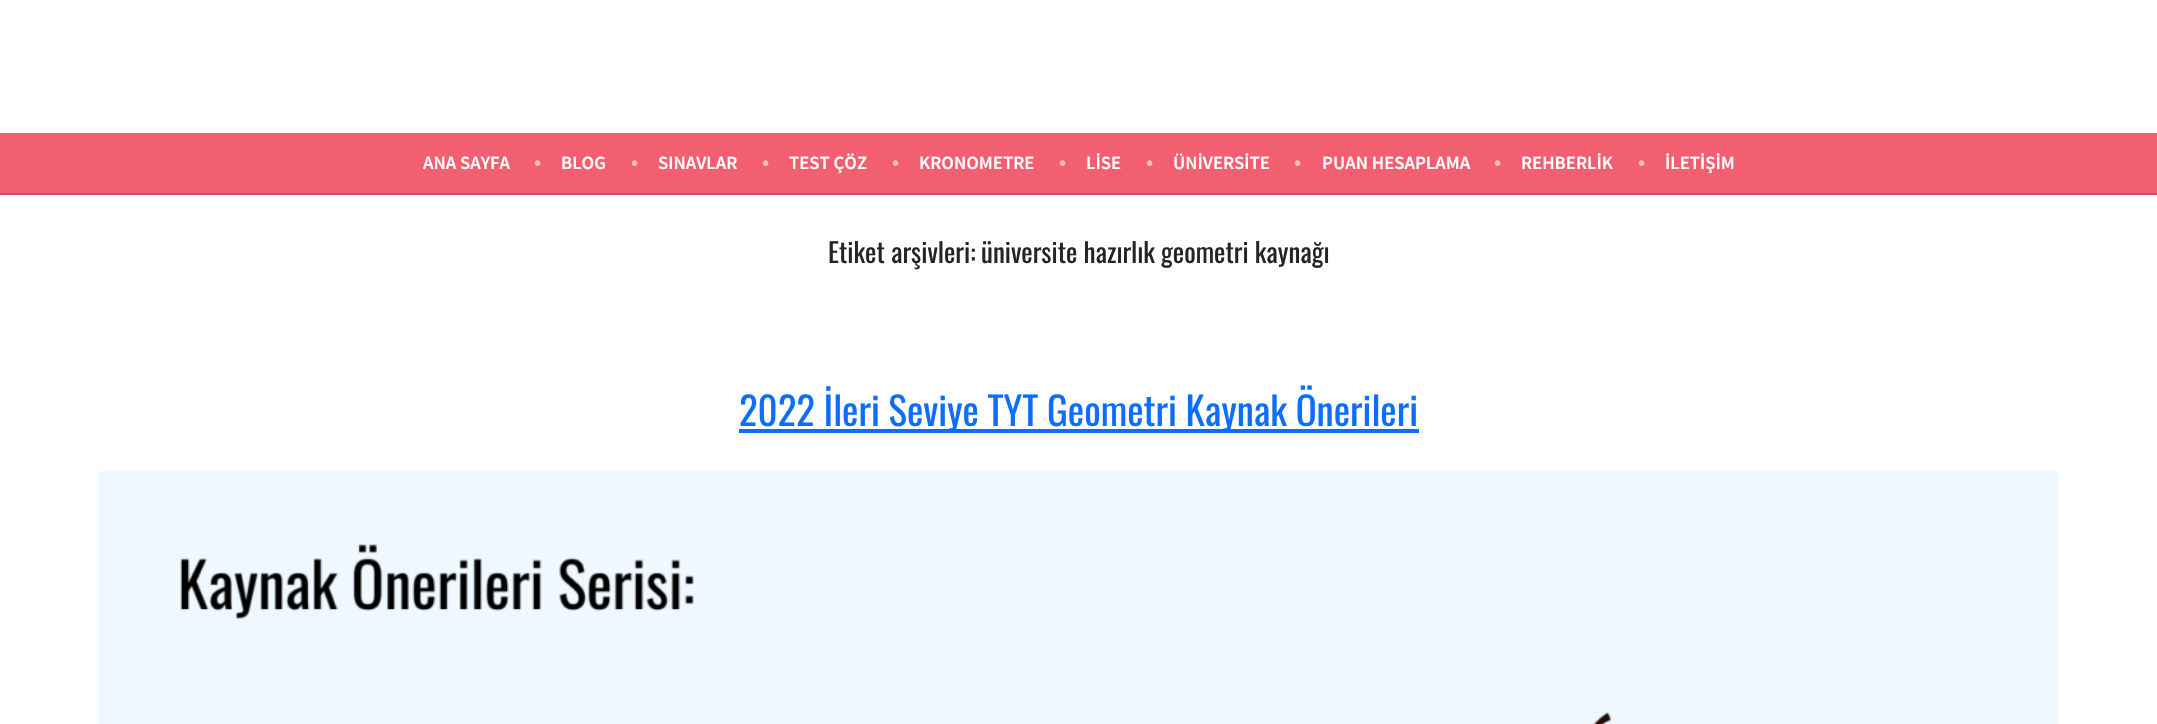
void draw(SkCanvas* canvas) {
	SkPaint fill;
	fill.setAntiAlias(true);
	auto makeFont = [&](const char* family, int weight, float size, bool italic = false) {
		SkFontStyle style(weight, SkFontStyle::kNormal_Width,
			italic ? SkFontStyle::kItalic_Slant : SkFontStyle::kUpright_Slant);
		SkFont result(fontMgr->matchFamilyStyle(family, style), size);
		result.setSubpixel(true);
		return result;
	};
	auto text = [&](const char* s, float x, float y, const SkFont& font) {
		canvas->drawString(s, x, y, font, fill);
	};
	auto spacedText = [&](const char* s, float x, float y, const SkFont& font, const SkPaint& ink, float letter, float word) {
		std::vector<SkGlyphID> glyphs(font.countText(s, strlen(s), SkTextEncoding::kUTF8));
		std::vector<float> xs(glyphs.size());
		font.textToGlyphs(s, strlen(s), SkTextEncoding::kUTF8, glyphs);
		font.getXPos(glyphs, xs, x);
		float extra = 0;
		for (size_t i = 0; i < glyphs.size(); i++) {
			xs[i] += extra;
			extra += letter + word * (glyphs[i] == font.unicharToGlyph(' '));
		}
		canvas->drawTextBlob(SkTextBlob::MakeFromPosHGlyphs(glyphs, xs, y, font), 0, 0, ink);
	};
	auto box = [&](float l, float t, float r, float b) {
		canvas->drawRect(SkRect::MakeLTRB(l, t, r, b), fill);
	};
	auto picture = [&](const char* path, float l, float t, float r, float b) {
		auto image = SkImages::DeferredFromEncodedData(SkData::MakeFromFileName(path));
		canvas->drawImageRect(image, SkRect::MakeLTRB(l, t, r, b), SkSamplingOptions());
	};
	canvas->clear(0xFFFFFFFF);
	fill.setColor(0xFFF25F70);
	box(0, 133, 2157, 193);
	fill.setColor(0xFFCE515F);
	box(0, 193, 2157, 195);
	fill.setColor(0xFF0D6EFD);
	box(739, 429, 1419, 433);
	picture("image0.png", 98, 471, 2059, 724);
	auto font1 = makeFont("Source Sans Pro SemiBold", 600, 18.75f);
	fill.setColor(0xFFFFFFFF);
	text("ANA SAYFA", 423, 169, font1);
	auto font2 = makeFont("Source Sans Pro SemiBold", 600, 22);
	fill.setColor(0xFFFABCC3);
	text("•", 534, 169, font2);
	fill.setColor(0xFFFFFFFF);
	text("BLOG", 561, 169, font1);
	fill.setColor(0xFFFABCC3);
	text("•", 631, 169, font2);
	fill.setColor(0xFFFFFFFF);
	text("SINAVLAR", 658, 169, font1);
	fill.setColor(0xFFFABCC3);
	text("•", 762, 169, font2);
	fill.setColor(0xFFFFFFFF);
	text("TEST ÇÖZ", 789, 169, font1);
	fill.setColor(0xFFFABCC3);
	text("•", 892, 169, font2);
	fill.setColor(0xFFFFFFFF);
	text("KRONOMETRE", 919, 169, font1);
	fill.setColor(0xFFFABCC3);
	text("•", 1059, 169, font2);
	fill.setColor(0xFFFFFFFF);
	text("LİSE", 1086, 169, font1);
	fill.setColor(0xFFFABCC3);
	text("•", 1146, 169, font2);
	fill.setColor(0xFFFFFFFF);
	text("ÜNİVERSİTE", 1173, 169, font1);
	fill.setColor(0xFFFABCC3);
	text("•", 1294, 169, font2);
	fill.setColor(0xFFFFFFFF);
	text("PUAN HESAPLAMA", 1322, 169, font1);
	fill.setColor(0xFFFABCC3);
	text("•", 1494, 169, font2);
	fill.setColor(0xFFFFFFFF);
	text("REHBERLİK", 1521, 169, font1);
	fill.setColor(0xFFFABCC3);
	text("•", 1638, 169, font2);
	fill.setColor(0xFFFFFFFF);
	text("İLETİŞİM", 1665, 169, font1);
	auto font3 = makeFont("Oswald", 400, 27);
	fill.setColor(0xFF212529);
	text("Etiket arşivleri:", 828, 263, font3);
	text("üniversite hazırlık geometri kaynağı", 981, 263, font3);
	auto font4 = makeFont("Oswald", 400, 38.9f);
	fill.setColor(0xFF0D6EFD);
	spacedText("2022 İleri Seviye TYT Geometri Kaynak Önerileri", 739, 426, font4, fill, 0, -0.25f);
}
